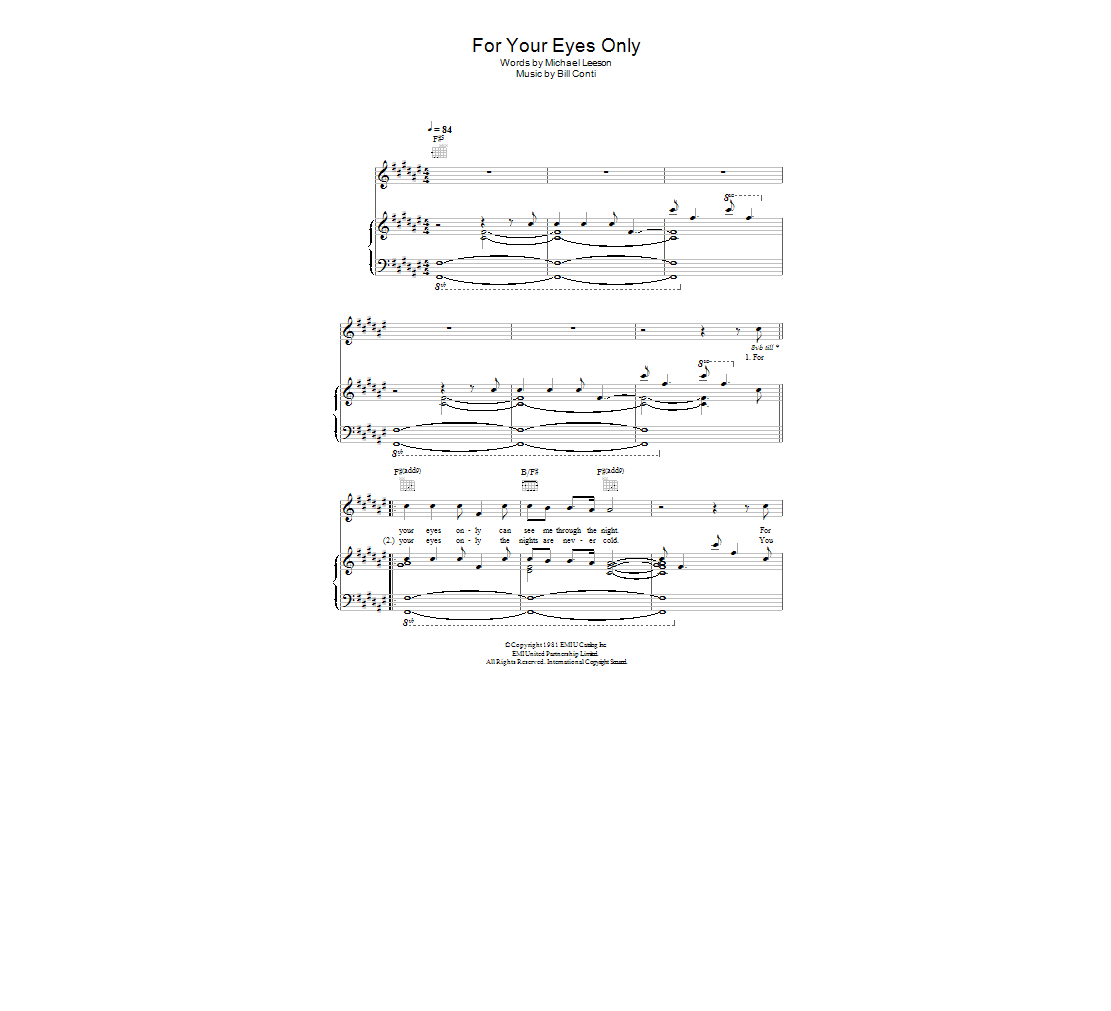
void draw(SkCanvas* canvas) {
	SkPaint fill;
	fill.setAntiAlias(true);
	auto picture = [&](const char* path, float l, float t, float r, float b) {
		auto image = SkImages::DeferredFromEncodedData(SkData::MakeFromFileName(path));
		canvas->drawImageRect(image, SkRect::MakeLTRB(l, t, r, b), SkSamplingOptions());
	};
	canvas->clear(0xFFFFFFFF);
	picture("image0.png", 333, 38, 783, 666);
}
